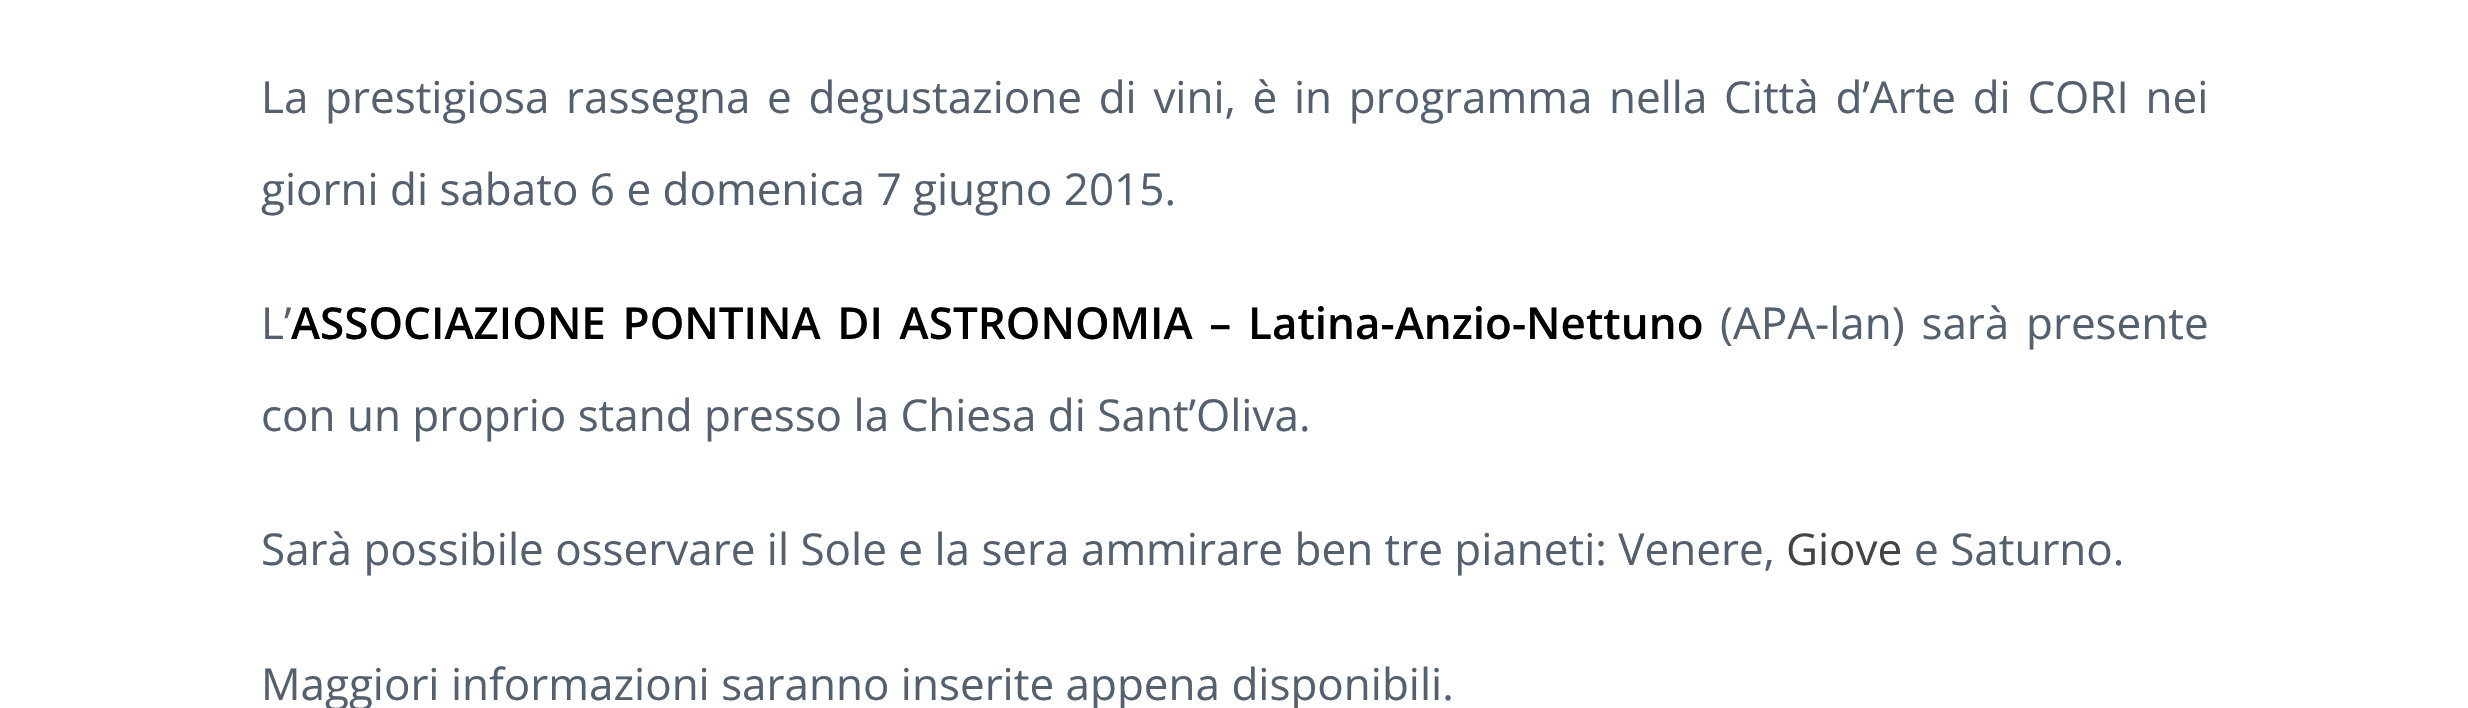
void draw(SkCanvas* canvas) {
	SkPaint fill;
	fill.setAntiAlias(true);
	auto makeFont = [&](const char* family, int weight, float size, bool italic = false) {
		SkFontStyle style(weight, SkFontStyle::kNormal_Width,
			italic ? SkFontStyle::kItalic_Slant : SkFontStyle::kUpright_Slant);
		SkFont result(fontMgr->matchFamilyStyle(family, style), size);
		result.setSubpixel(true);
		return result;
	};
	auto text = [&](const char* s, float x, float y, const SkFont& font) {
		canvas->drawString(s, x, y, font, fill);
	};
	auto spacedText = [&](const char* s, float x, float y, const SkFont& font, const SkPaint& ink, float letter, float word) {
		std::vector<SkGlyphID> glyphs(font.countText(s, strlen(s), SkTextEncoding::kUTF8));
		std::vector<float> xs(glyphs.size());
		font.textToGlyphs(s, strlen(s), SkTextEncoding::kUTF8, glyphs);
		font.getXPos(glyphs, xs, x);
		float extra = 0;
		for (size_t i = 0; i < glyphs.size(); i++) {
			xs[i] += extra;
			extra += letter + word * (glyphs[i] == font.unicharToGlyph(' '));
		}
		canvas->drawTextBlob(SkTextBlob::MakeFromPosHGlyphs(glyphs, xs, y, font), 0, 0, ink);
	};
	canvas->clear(0xFFFFFFFF);
	auto font1 = makeFont("Open Sans", 400, 44);
	fill.setColor(0xFF55606E);
	spacedText("La prestigiosa rassegna e degustazione di vini, è in programma nella Città d’Arte di CORI nei", 261, 113, font1, fill, 0, 5.25f);
	text("giorni di sabato 6 e domenica 7 giugno 2015.", 261, 205, font1);
	text("L’", 261, 339, font1);
	auto font2 = makeFont("Open Sans", 600, 44);
	fill.setColor(0xFF000000);
	spacedText("ASSOCIAZIONE PONTINA DI ASTRONOMIA – Latina-Anzio-Nettuno", 291, 339, font2, fill, 0, 5.25f);
	fill.setColor(0xFF55606E);
	spacedText("(APA-lan) sarà presente", 1720, 339, font1, fill, 0, 5.25f);
	text("con un proprio stand presso la Chiesa di Sant’Oliva.", 261, 431, font1);
	text("Sarà possibile osservare il Sole e la sera ammirare ben tre pianeti: Venere,", 261, 565, font1);
	fill.setColor(0xFF474343);
	text("Giove", 1786, 565, font1);
	fill.setColor(0xFF55606E);
	text("e Saturno.", 1914, 565, font1);
	text("Maggiori informazioni saranno inserite appena disponibili.", 261, 700, font1);
}
